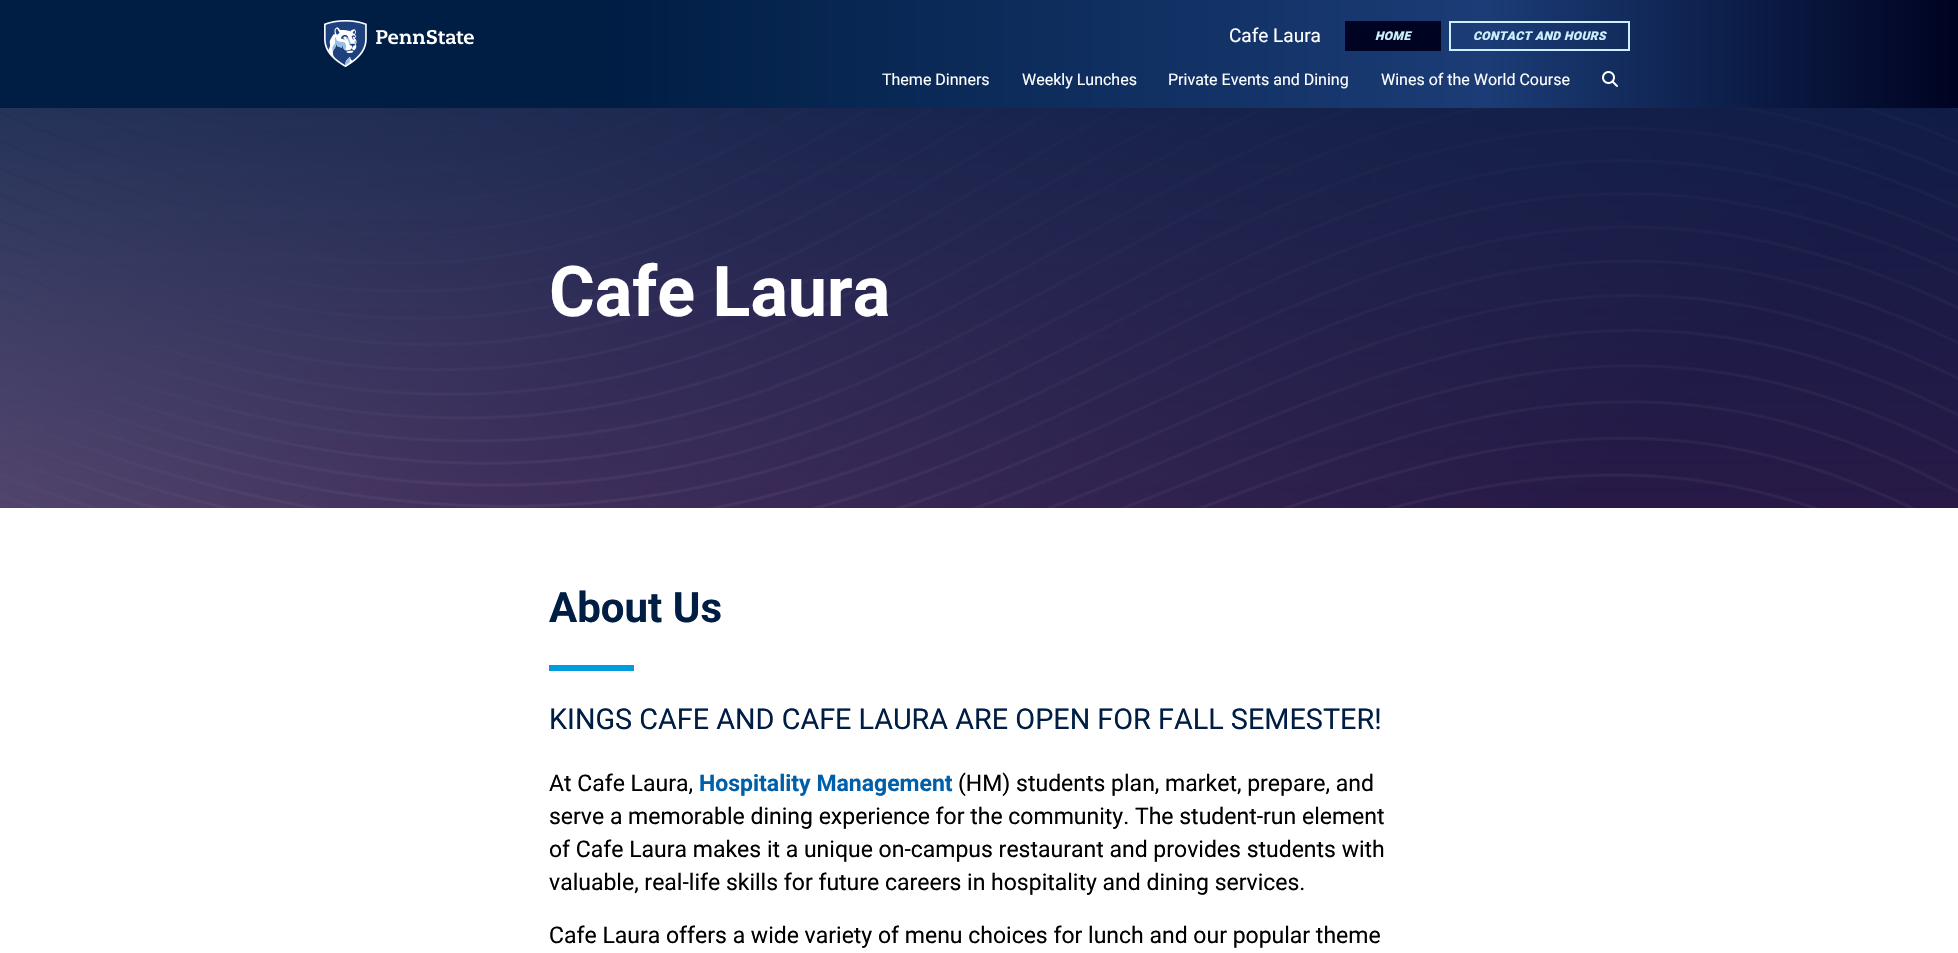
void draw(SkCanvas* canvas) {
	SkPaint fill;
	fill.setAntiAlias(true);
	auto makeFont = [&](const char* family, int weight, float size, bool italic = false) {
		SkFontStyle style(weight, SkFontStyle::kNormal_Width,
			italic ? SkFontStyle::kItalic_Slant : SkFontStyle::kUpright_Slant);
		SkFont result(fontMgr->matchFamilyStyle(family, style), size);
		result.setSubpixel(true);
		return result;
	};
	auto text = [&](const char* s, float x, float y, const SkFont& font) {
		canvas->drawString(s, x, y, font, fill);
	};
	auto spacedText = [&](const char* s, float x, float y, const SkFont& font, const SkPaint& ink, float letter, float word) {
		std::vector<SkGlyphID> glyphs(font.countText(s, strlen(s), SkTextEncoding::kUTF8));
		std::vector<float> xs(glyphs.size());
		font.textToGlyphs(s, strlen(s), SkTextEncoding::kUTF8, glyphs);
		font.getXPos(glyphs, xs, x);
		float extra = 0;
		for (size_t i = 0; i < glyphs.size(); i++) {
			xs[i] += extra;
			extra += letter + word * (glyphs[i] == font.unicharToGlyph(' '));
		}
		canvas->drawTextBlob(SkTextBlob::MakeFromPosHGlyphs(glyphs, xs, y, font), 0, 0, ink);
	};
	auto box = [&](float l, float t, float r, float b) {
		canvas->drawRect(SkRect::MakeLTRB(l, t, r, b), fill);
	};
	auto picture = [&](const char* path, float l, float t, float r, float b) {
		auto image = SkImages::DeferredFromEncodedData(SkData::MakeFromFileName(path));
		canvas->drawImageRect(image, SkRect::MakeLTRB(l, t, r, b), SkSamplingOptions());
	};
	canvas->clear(0xFFFFFFFF);
	{
		const SkColor colors[] = {0xFF001E44, 0xFF001E44, 0xFF1B3C76, 0xFF000321};
		const float stops[] = {0, 0.31f, 0.76f, 1};
		const SkPoint ends[] = {{0, 54}, {1958, 54}};
		fill.setShader(SkGradientShader::MakeLinear(ends, colors, stops, 4, SkTileMode::kClamp));
		fill.setAlpha(255);
	}
	box(0, 0, 1958, 108);
	picture("image0.png", 324, 20, 474, 67);
	fill.setShader(nullptr);
	fill.setColor(0xFF000321);
	box(1345, 21, 1441, 51);
	fill.setStyle(SkPaint::kStroke_Style);
	fill.setStrokeWidth(2);
	fill.setColor(0xFFCCF0FF);
	canvas->drawRect(SkRect::MakeLTRB(1450, 22, 1629, 50), fill);
	picture("image1.png", 1602, 71, 1618, 87);
	picture("image2.png", 0, 108, 1958, 508);
	fill.setStyle(SkPaint::kFill_Style);
	fill.setColor(0xFF009CDE);
	box(549, 665, 634, 671);
	auto font1 = makeFont("Roboto", 400, 19);
	fill.setColor(0xFFFFFFFF);
	text("Cafe Laura", 1229, 42, font1);
	auto font2 = makeFont("Roboto", 900, 12, true);
	fill.setColor(0xFFCCF0FF);
	spacedText("HOME", 1375, 40, font2, fill, 0.4f, 0);
	spacedText("CONTACT AND HOURS", 1473, 40, font2, fill, 0.4f, 0);
	auto font3 = makeFont("Roboto", 400, 16);
	fill.setColor(0xFFFFFFFF);
	text("Theme Dinners", 882, 85, font3);
	text("Weekly Lunches", 1022, 85, font3);
	text("Private Events and Dining", 1168, 85, font3);
	text("Wines of the World Course", 1381, 85, font3);
	auto font4 = makeFont("Roboto", 700, 70);
	text("Cafe Laura", 549, 316, font4);
	auto font5 = makeFont("Roboto", 700, 42);
	fill.setColor(0xFF001E44);
	text("About Us", 549, 622, font5);
	auto font6 = makeFont("Roboto", 400, 28.8f);
	text("KINGS CAFE AND CAFE LAURA ARE OPEN FOR FALL SEMESTER!", 549, 729, font6);
	auto font7 = makeFont("Roboto", 400, 23);
	fill.setColor(0xFF000000);
	text("At Cafe Laura,", 549, 791, font7);
	auto font8 = makeFont("Roboto", 700, 23);
	fill.setColor(0xFF005FA9);
	text("Hospitality Management", 699, 791, font8);
	fill.setColor(0xFF000000);
	text("(HM) students plan, market, prepare, and", 958, 791, font7);
	text("serve a memorable dining experience for the community. The student-run element", 549, 824, font7);
	text("of Cafe Laura makes it a unique on-campus restaurant and provides students with", 549, 857, font7);
	text("valuable, real-life skills for future careers in hospitality and dining services.", 549, 890, font7);
	text("Cafe Laura offers a wide variety of menu choices for lunch and our popular theme", 549, 943, font7);
}
